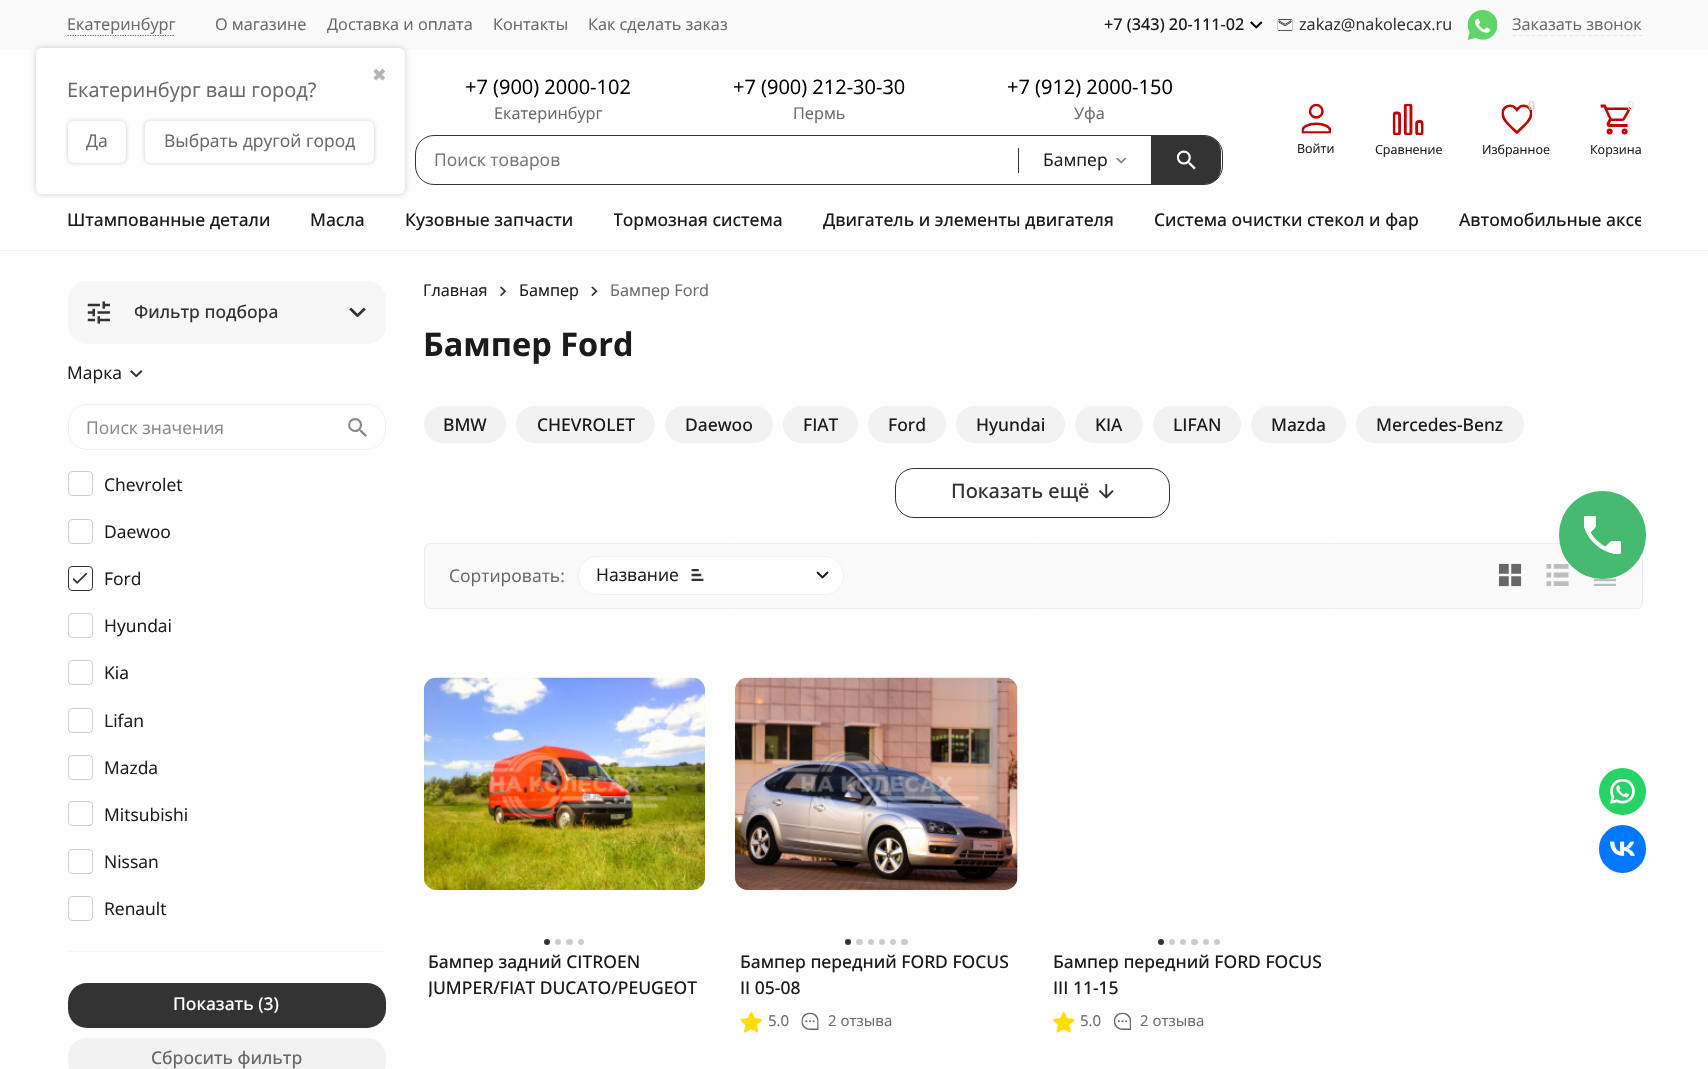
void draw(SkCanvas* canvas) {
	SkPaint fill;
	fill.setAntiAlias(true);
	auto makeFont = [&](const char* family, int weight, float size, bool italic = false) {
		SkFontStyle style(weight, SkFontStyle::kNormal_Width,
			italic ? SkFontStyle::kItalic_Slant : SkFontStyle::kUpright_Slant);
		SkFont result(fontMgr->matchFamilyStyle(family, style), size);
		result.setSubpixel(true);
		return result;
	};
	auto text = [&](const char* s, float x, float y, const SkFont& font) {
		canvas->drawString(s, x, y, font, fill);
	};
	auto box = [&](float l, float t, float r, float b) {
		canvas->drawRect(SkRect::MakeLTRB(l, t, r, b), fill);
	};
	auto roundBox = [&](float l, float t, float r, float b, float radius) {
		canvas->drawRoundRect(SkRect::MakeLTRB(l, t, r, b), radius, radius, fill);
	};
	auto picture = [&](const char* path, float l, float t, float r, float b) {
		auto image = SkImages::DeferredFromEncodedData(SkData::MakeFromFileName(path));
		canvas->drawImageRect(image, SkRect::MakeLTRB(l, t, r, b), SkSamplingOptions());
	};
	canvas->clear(0xFFFFFFFF);
	fill.setColor(0xFFF2F2F2);
	box(0, 250, 1708, 251);
	fill.setColor(0xFFFAFAFA);
	box(0, 0, 1708, 50);
	fill.setStyle(SkPaint::kStroke_Style);
	fill.setStrokeWidth(1.2f);
	fill.setColor(0xFF686868);
	fill.setPathEffect(SkDashPathEffect::Make({{1.25f, 1.25f}}, 0));
	canvas->drawPath(SkPathBuilder().moveTo(67.5f, 35.5f).lineTo(175, 35.5f).detach(), fill);
	fill.setPathEffect(nullptr);
	fill.setStyle(SkPaint::kFill_Style);
	fill.setColor(0x33000000);
	fill.setMaskFilter(SkMaskFilter::MakeBlur(kNormal_SkBlurStyle, 3));
	canvas->drawRoundRect(SkRect::MakeLTRB(36, 48, 405, 194), 6, 6, fill);
	fill.setMaskFilter(nullptr);
	fill.setColor(0xFFFFFFFF);
	roundBox(36, 48, 405, 194, 6);
	fill.setColor(0x33000000);
	fill.setMaskFilter(SkMaskFilter::MakeBlur(kNormal_SkBlurStyle, 2));
	canvas->drawRoundRect(SkRect::MakeLTRB(68, 121, 126, 163), 6, 6, fill);
	fill.setMaskFilter(nullptr);
	fill.setColor(0xFFFFFFFF);
	roundBox(68, 121, 126, 163, 6);
	fill.setColor(0x33000000);
	fill.setMaskFilter(SkMaskFilter::MakeBlur(kNormal_SkBlurStyle, 2));
	canvas->drawRoundRect(SkRect::MakeLTRB(145, 121, 374, 163), 6, 6, fill);
	fill.setMaskFilter(nullptr);
	fill.setColor(0xFFFFFFFF);
	roundBox(145, 121, 374, 163, 6);
	picture("image0.png", 1250, 21, 1263, 29);
	picture("image1.png", 1277, 19, 1293, 31);
	picture("image2.png", 1467, 10, 1498, 40);
	fill.setStyle(SkPaint::kStroke_Style);
	fill.setColor(0xFFE5E5E5);
	fill.setPathEffect(SkDashPathEffect::Make({{3.75f, 2.56f}}, 0));
	canvas->drawPath(SkPathBuilder().moveTo(1512.5f, 35.5f).lineTo(1642.5f, 35.5f).detach(), fill);
	fill.setPathEffect(nullptr);
	fill.setStrokeWidth(1);
	fill.setColor(0xFF333333);
	canvas->drawRoundRect(SkRect::MakeLTRB(415.5f, 135.5f, 1222.5f, 184.5f), 18.5f, 18.5f, fill);
	fill.setStyle(SkPaint::kFill_Style);
	box(1018, 148, 1019, 173);
	picture("image3.png", 1116, 158, 1126, 164);
	canvas->drawPath(SkPathBuilder().moveTo(1151, 136).lineTo(1205, 136).cubicTo(1214, 136, 1221, 143, 1221, 152).lineTo(1221, 168).cubicTo(1221, 177, 1214, 184, 1205, 184).lineTo(1151, 184).close().detach(), fill);
	picture("image4.png", 1176, 150, 1196, 170);
	picture("image5.png", 1301, 104, 1331, 134);
	picture("image6.png", 1392, 103, 1424, 135);
	picture("image7.png", 1501, 104, 1533, 135);
	picture("image8.png", 1600, 104, 1631, 135);
	fill.setColor(0xFFF7F7F7);
	roundBox(68, 281, 386, 344, 19);
	picture("image9.png", 87, 301, 110, 324);
	picture("image10.png", 349, 307, 366, 318);
	box(68, 951, 386, 952);
	picture("image11.png", 130, 370, 143, 378);
	fill.setStyle(SkPaint::kStroke_Style);
	fill.setColor(0xFFF2F2F2);
	canvas->drawRoundRect(SkRect::MakeLTRB(68.5f, 404.5f, 385.5f, 449.5f), 18.5f, 18.5f, fill);
	picture("image12.png", 348, 418, 367, 437);
	fill.setColor(0xFFCFCFCF);
	canvas->drawRoundRect(SkRect::MakeLTRB(68.5f, 471.5f, 92.5f, 495.5f), 3.5f, 3.5f, fill);
	canvas->drawRoundRect(SkRect::MakeLTRB(68.5f, 519.5f, 92.5f, 543.5f), 3.5f, 3.5f, fill);
	fill.setColor(0xFF333333);
	canvas->drawRoundRect(SkRect::MakeLTRB(68.5f, 566.5f, 92.5f, 590.5f), 3.5f, 3.5f, fill);
	picture("image13.png", 73, 573, 88, 584);
	fill.setColor(0xFFCFCFCF);
	canvas->drawRoundRect(SkRect::MakeLTRB(68.5f, 613.5f, 92.5f, 637.5f), 3.5f, 3.5f, fill);
	canvas->drawRoundRect(SkRect::MakeLTRB(68.5f, 660.5f, 92.5f, 684.5f), 3.5f, 3.5f, fill);
	canvas->drawRoundRect(SkRect::MakeLTRB(68.5f, 708.5f, 92.5f, 732.5f), 3.5f, 3.5f, fill);
	canvas->drawRoundRect(SkRect::MakeLTRB(68.5f, 755.5f, 92.5f, 779.5f), 3.5f, 3.5f, fill);
	canvas->drawRoundRect(SkRect::MakeLTRB(68.5f, 801.5f, 92.5f, 825.5f), 3.5f, 3.5f, fill);
	canvas->drawRoundRect(SkRect::MakeLTRB(68.5f, 849.5f, 92.5f, 873.5f), 3.5f, 3.5f, fill);
	canvas->drawRoundRect(SkRect::MakeLTRB(68.5f, 896.5f, 92.5f, 920.5f), 3.5f, 3.5f, fill);
	fill.setStyle(SkPaint::kFill_Style);
	fill.setColor(0xFF333333);
	roundBox(68, 983, 386, 1028, 19);
	fill.setColor(0xFFF2F2F2);
	roundBox(68, 1038, 386, 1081, 19);
	picture("image14.png", 500, 286, 506, 296);
	picture("image15.png", 591, 286, 598, 296);
	roundBox(424, 406, 506, 443, 18.5f);
	roundBox(516, 406, 655, 443, 18.5f);
	roundBox(665, 406, 773, 443, 18.5f);
	roundBox(783, 406, 858, 443, 18.5f);
	roundBox(868, 406, 946, 443, 18.5f);
	roundBox(956, 406, 1065, 443, 18.5f);
	roundBox(1075, 406, 1143, 443, 18.5f);
	roundBox(1153, 406, 1241, 443, 18.5f);
	roundBox(1251, 406, 1346, 443, 18.5f);
	roundBox(1356, 406, 1524, 443, 18.5f);
	fill.setStyle(SkPaint::kStroke_Style);
	fill.setColor(0xFF333333);
	canvas->drawRoundRect(SkRect::MakeLTRB(895.5f, 468.5f, 1169.5f, 517.5f), 18.5f, 18.5f, fill);
	picture("image16.png", 1099, 483, 1114, 499);
	fill.setStyle(SkPaint::kFill_Style);
	fill.setColor(0xFFFAFAFA);
	canvas->drawRoundRect(SkRect::MakeLTRB(424.5f, 543.5f, 1642.5f, 608.5f), 5.5f, 5.5f, fill);
	fill.setStyle(SkPaint::kStroke_Style);
	fill.setColor(0xFFEEEEEE);
	canvas->drawRoundRect(SkRect::MakeLTRB(424.5f, 543.5f, 1642.5f, 608.5f), 5.5f, 5.5f, fill);
	fill.setStyle(SkPaint::kFill_Style);
	fill.setColor(0xFFFFFFFF);
	canvas->drawRoundRect(SkRect::MakeLTRB(578.5f, 556.5f, 843.5f, 594.5f), 18.5f, 18.5f, fill);
	fill.setStyle(SkPaint::kStroke_Style);
	fill.setColor(0xFFF2F2F2);
	canvas->drawRoundRect(SkRect::MakeLTRB(578.5f, 556.5f, 843.5f, 594.5f), 18.5f, 18.5f, fill);
	picture("image17.png", 691, 569, 704, 581);
	picture("image18.png", 816, 571, 829, 579);
	picture("image19.png", 1498, 563, 1522, 587);
	picture("image20.png", 1546, 564, 1569, 586);
	picture("image21.png", 1594, 576, 1616, 586);
	picture("image22.png", 423, 677, 705, 890);
	fill.setStyle(SkPaint::kFill_Style);
	fill.setColor(0xFF333333);
	canvas->drawCircle(547, 942, 3, fill);
	fill.setColor(0xFFCCCCCC);
	canvas->drawCircle(558, 942, 3, fill);
	roundBox(566, 939, 573, 945, 3);
	canvas->drawCircle(581, 942, 3, fill);
	picture("image23.png", 735, 677, 1018, 890);
	fill.setColor(0xFF333333);
	canvas->drawCircle(848, 942, 3, fill);
	fill.setColor(0xFFCCCCCC);
	roundBox(856, 939, 863, 945, 3);
	canvas->drawCircle(871, 942, 3, fill);
	canvas->drawCircle(882, 942, 3, fill);
	canvas->drawCircle(893, 942, 3, fill);
	roundBox(901, 939, 908, 945, 3);
	picture("image24.png", 740, 1012, 762, 1033);
	picture("image25.png", 801, 1012, 819, 1030);
	fill.setColor(0xFF333333);
	canvas->drawCircle(1161, 942, 3, fill);
	fill.setColor(0xFFCCCCCC);
	canvas->drawCircle(1172, 942, 3, fill);
	canvas->drawCircle(1183, 942, 3, fill);
	roundBox(1191, 939, 1198, 945, 3);
	canvas->drawCircle(1206, 942, 3, fill);
	canvas->drawCircle(1217, 942, 3, fill);
	picture("image26.png", 1053, 1012, 1075, 1033);
	picture("image27.png", 1114, 1012, 1131, 1030);
	fill.setColor(0xFF44BB6E);
	roundBox(1559, 491, 1646, 579, 43.5f);
	fill.setColor(0x1A44BB6E);
	roundBox(1559, 491, 1646, 579, 43.5f);
	picture("image28.png", 1584, 516, 1621, 554);
	picture("image29.png", 1584, 516, 1621, 554);
	fill.setColor(0xFF25D366);
	canvas->drawCircle(1622.5f, 791.5f, 23.5f, fill);
	picture("image30.png", 1610, 779, 1635, 804);
	fill.setColor(0xFF0077FF);
	roundBox(1599, 825, 1646, 873, 23.5f);
	picture("image31.png", 1610, 841, 1635, 856);
	auto font1 = makeFont("Open Sans", 400, 16.25f);
	fill.setColor(0xFF686868);
	text("Екатеринбург", 67, 30, font1);
	auto font2 = makeFont("DejaVu Sans", 400, 17.5f);
	fill.setColor(0xFFB4B4B4);
	text("✖", 372, 81, font2);
	auto font3 = makeFont("Open Sans", 400, 20);
	fill.setColor(0xFF686868);
	text("Екатеринбург ваш город?", 67, 97, font3);
	auto font4 = makeFont("Open Sans", 400, 17.5f);
	text("Да", 86, 147, font4);
	text("Выбрать другой город", 164, 147, font4);
	auto font5 = makeFont("Open Sans", 500, 16.25f);
	fill.setColor(0xFF1B1B1B);
	text("+7 (343) 20-111-02", 1104, 30, font5);
	fill.setColor(0xFF333333);
	text("zakaz@nakolecax.ru", 1299, 30, font1);
	fill.setColor(0xFF686868);
	text("Заказать звонок", 1512, 30, font1);
	text("О магазине", 215, 30, font1);
	text("Доставка и оплата", 327, 30, font1);
	text("Контакты", 493, 30, font1);
	text("Как сделать заказ", 588, 30, font1);
	fill.setColor(0xFF000000);
	text("+7 (900) 2000-102", 465, 94, font3);
	fill.setColor(0xFF686868);
	text("Екатеринбург", 494, 119, font1);
	fill.setColor(0xFF000000);
	text("+7 (900) 212-30-30", 733, 94, font3);
	fill.setColor(0xFF686868);
	text("Пермь", 793, 119, font1);
	fill.setColor(0xFF000000);
	text("+7 (912) 2000-150", 1007, 94, font3);
	fill.setColor(0xFF686868);
	text("Уфа", 1074, 119, font1);
	fill.setColor(0xFF757575);
	text("Поиск товаров", 434, 166, font4);
	fill.setColor(0xFF1B1B1B);
	text("Бампер", 1043, 166, font4);
	auto font6 = makeFont("Open Sans", 400, 12.5f);
	text("Войти", 1297, 153, font6);
	text("Сравнение", 1375, 154, font6);
	fill.setColor(0xFFF0C1C1);
	text("0", 1528, 110, font6);
	fill.setColor(0xFF1B1B1B);
	text("Избранное", 1482, 154, font6);
	fill.setColor(0xFFF8E0E0);
	text("0", 1627, 110, font6);
	fill.setColor(0xFF1B1B1B);
	text("Корзина", 1590, 154, font6);
	auto font7 = makeFont("Open Sans", 500, 17.5f);
	text("Штампованные детали", 67, 226, font7);
	text("Масла", 310, 226, font7);
	text("Кузовные запчасти", 405, 226, font7);
	canvas->save();
	canvas->clipRect(SkRect::MakeLTRB(614, 210, 783, 230));
	text("Тормозная система", 613, 226, font7);
	canvas->restore();
	text("Двигатель и элементы двигателя", 823, 226, font7);
	canvas->save();
	canvas->clipRect(SkRect::MakeLTRB(1154, 210, 1419, 230));
	text("Система очистки стекол и фар", 1154, 226, font7);
	canvas->restore();
	canvas->save();
	canvas->clipRect(SkRect::MakeLTRB(1459, 210, 1641, 230));
	text("Автомобильные аксе", 1459, 226, font7);
	canvas->restore();
	fill.setColor(0xFF333333);
	text("Фильтр подбора", 134, 318, font7);
	fill.setColor(0xFF1B1B1B);
	text("Марка", 67, 379, font4);
	fill.setColor(0xFF888888);
	text("Поиск значения", 86, 434, font4);
	fill.setColor(0xFF1B1B1B);
	text("Chevrolet", 104, 491, font4);
	text("Daewoo", 104, 538, font4);
	text("Ford", 104, 585, font4);
	text("Hyundai", 104, 632, font4);
	text("Kia", 104, 679, font4);
	text("Lifan", 104, 727, font4);
	text("Mazda", 104, 774, font4);
	text("Mitsubishi", 104, 821, font4);
	text("Nissan", 104, 868, font4);
	text("Renault", 104, 915, font4);
	fill.setColor(0xFFFFFFFF);
	text("Показать (3)", 173, 1010, font7);
	fill.setColor(0xFF686868);
	text("Сбросить фильтр", 151, 1064, font7);
	fill.setColor(0xFF1B1B1B);
	text("Главная", 423, 296, font1);
	text("Бампер", 519, 296, font1);
	fill.setColor(0xFF686868);
	text("Бампер Ford", 610, 296, font1);
	auto font8 = makeFont("Open Sans", 700, 32.5f);
	fill.setColor(0xFF1B1B1B);
	text("Бампер Ford", 423, 356, font8);
	text("BMW", 443, 431, font7);
	text("CHEVROLET", 537, 431, font7);
	text("Daewoo", 685, 431, font7);
	text("FIAT", 803, 431, font7);
	text("Ford", 888, 431, font7);
	text("Hyundai", 976, 431, font7);
	text("KIA", 1095, 431, font7);
	text("LIFAN", 1173, 431, font7);
	text("Mazda", 1271, 431, font7);
	text("Mercedes-Benz", 1376, 431, font7);
	auto font9 = makeFont("Open Sans", 500, 20);
	fill.setColor(0xFF333333);
	text("Показать ещё", 951, 498, font9);
	fill.setColor(0xFF686868);
	text("Сортировать:", 449, 582, font4);
	fill.setColor(0xFF1B1B1B);
	text("Название", 596, 581, font4);
	text("Бампер задний CITROEN", 428, 968, font7);
	canvas->save();
	canvas->clipRect(SkRect::MakeLTRB(429, 949, 700, 1001));
	text("JUMPER/FIAT DUCATO/PEUGEOT", 428, 994, font7);
	canvas->restore();
	text("Бампер передний FORD FOCUS", 740, 968, font7);
	text("II 05-08", 740, 994, font7);
	auto font10 = makeFont("Open Sans", 400, 15);
	fill.setColor(0xFF686868);
	text("5.0", 768, 1026, font10);
	text("2 отзыва", 828, 1026, font10);
	fill.setColor(0xFF1B1B1B);
	text("Бампер передний FORD FOCUS", 1053, 968, font7);
	text("III 11-15", 1053, 994, font7);
	fill.setColor(0xFF686868);
	text("5.0", 1080, 1026, font10);
	text("2 отзыва", 1140, 1026, font10);
}
